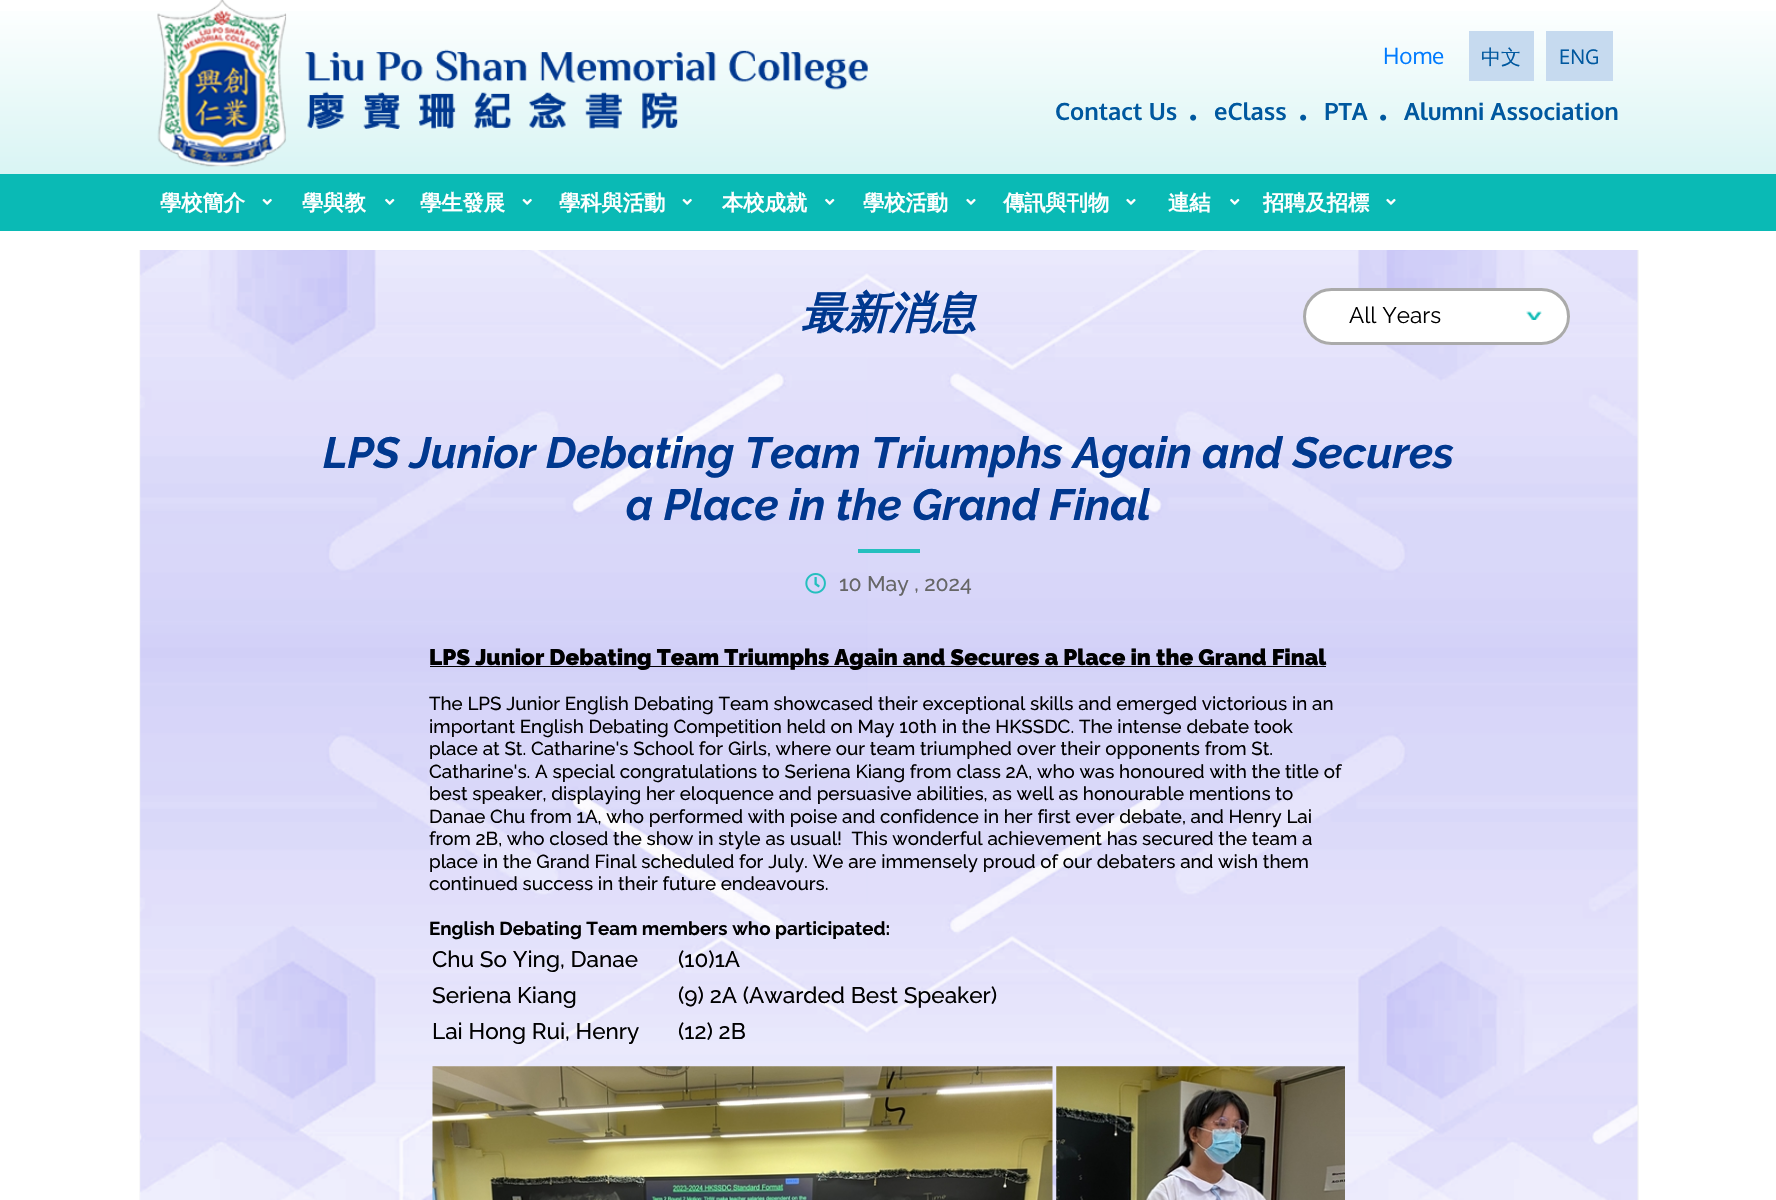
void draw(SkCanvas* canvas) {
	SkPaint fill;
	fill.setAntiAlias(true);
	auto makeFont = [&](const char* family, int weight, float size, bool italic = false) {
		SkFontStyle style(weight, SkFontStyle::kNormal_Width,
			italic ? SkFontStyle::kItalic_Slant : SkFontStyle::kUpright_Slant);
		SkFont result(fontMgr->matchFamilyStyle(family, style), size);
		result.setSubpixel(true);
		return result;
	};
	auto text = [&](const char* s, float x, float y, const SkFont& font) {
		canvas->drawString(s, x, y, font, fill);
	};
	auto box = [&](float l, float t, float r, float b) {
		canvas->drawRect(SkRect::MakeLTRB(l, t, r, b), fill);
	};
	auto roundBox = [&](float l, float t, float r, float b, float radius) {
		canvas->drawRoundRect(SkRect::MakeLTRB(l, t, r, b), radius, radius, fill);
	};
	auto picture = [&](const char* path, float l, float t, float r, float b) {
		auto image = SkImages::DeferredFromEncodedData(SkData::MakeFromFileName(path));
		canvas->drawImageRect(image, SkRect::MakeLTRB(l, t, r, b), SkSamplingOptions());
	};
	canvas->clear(0xFFFFFFFF);
	{
		const SkColor colors[] = {0xFFFFFFFF, 0xFFCCF1F0};
		const float stops[] = {0, 1};
		const SkPoint ends[] = {{888, 0}, {888, 231}};
		fill.setShader(SkGradientShader::MakeLinear(ends, colors, stops, 2, SkTileMode::kClamp));
		fill.setAlpha(255);
	}
	box(0, 11, 1776, 174);
	picture("image0.png", 157, 0, 869, 167);
	fill.setShader(nullptr);
	fill.setColor(0xFFC6DAEF);
	box(1469, 31, 1534, 81);
	box(1546, 31, 1613, 81);
	picture("image1.png", 1190, 114, 1197, 121);
	picture("image1.png", 1300, 114, 1307, 121);
	picture("image1.png", 1380, 114, 1387, 121);
	fill.setColor(0xFF0ABAB5);
	box(0, 174, 1776, 231);
	picture("image2.png", 262, 198, 272, 205);
	picture("image3.png", 385, 198, 395, 205);
	picture("image2.png", 522, 198, 532, 205);
	picture("image2.png", 682, 198, 692, 205);
	picture("image3.png", 825, 198, 835, 205);
	picture("image4.png", 966, 198, 976, 205);
	picture("image4.png", 1126, 198, 1136, 205);
	picture("image3.png", 1230, 198, 1240, 205);
	picture("image4.png", 1386, 198, 1396, 205);
	picture("image5.png", 139, 250, 1639, 1200);
	fill.setColor(0xFFFFFFFF);
	roundBox(1303, 288, 1570, 345, 28.5f);
	picture("image6.png", 1526, 311, 1542, 320);
	fill.setStyle(SkPaint::kStroke_Style);
	fill.setStrokeWidth(3);
	fill.setColor(0xFFAAAAAA);
	canvas->drawRoundRect(SkRect::MakeLTRB(1304.5f, 289.5f, 1568.5f, 343.5f), 27, 27, fill);
	fill.setStyle(SkPaint::kFill_Style);
	fill.setColor(0xFF25BFBE);
	box(858, 549, 920, 553);
	picture("image7.png", 805, 573, 826, 594);
	fill.setColor(0xFF000000);
	box(430, 666, 1326, 667);
	picture("image8.png", 432, 1066, 1053, 1200);
	picture("image9.png", 1056, 1066, 1345, 1200);
	auto font1 = makeFont("Oxygen", 400, 22.5f);
	fill.setColor(0xFF007BFF);
	text("Home", 1383, 64, font1);
	auto font2 = makeFont("WenQuanYi Zen Hei", 500, 20);
	fill.setColor(0xFF00589F);
	text("中文", 1481, 64, font2);
	auto font3 = makeFont("Oxygen", 400, 20);
	text("ENG", 1559, 64, font3);
	auto font4 = makeFont("Oxygen", 700, 23.75f);
	text("Contact Us", 1055, 120, font4);
	text("eClass", 1214, 120, font4);
	text("PTA", 1324, 120, font4);
	text("Alumni Association", 1404, 120, font4);
	auto font5 = makeFont("WenQuanYi Zen Hei", 700, 21.25f);
	fill.setColor(0xFFFFFFFF);
	text("學校簡介", 160, 210, font5);
	text("學與教", 302, 210, font5);
	text("學生發展", 420, 210, font5);
	text("學科與活動", 559, 210, font5);
	text("本校成就", 722, 210, font5);
	text("學校活動", 863, 210, font5);
	text("傳訊與刊物", 1003, 210, font5);
	text("連結", 1168, 210, font5);
	text("招聘及招標", 1263, 210, font5);
	auto font6 = makeFont("WenQuanYi Zen Hei", 700, 43.75f, true);
	fill.setColor(0xFF00388F);
	text("最新消息", 801, 328, font6);
	auto font7 = makeFont("Raleway", 400, 22.5f);
	fill.setColor(0xFF000000);
	text("All Years", 1349, 323, font7);
	auto font8 = makeFont("Raleway", 700, 43.75f, true);
	fill.setColor(0xFF00388F);
	text("LPS Junior Debating Team Triumphs Again and Secures", 323, 468, font8);
	text("a Place in the Grand Final", 626, 520, font8);
	auto font9 = makeFont("Raleway", 500, 21.25f);
	fill.setColor(0xFF666666);
	text("10 May , 2024", 839, 591, font9);
	auto font10 = makeFont("Raleway", 900, 22.5f);
	fill.setColor(0xFF000000);
	text("LPS Junior Debating Team Triumphs Again and Secures a Place in the Grand Final", 429, 665, font10);
	auto font11 = makeFont("Raleway", 500, 18.75f);
	text("The LPS Junior English Debating Team showcased their exceptional skills and emerged victorious in an", 429, 710, font11);
	text("important English Debating Competition held on May 10th in the HKSSDC. The intense debate took", 429, 733, font11);
	text("place at St. Catharine's School for Girls, where our team triumphed over their opponents from St.", 429, 755, font11);
	text("Catharine's. A special congratulations to Seriena Kiang from class 2A, who was honoured with the title of", 429, 778, font11);
	text("best speaker, displaying her eloquence and persuasive abilities, as well as honourable mentions to", 429, 800, font11);
	text("Danae Chu from 1A, who performed with poise and confidence in her first ever debate, and Henry Lai", 429, 823, font11);
	text("from 2B, who closed the show in style as usual!  This wonderful achievement has secured the team a", 429, 845, font11);
	text("place in the Grand Final scheduled for July. We are immensely proud of our debaters and wish them", 429, 868, font11);
	text("continued success in their future endeavours.", 429, 890, font11);
	auto font12 = makeFont("Raleway", 700, 18.75f);
	text("English Debating Team members who participated:", 429, 935, font12);
	auto font13 = makeFont("Raleway", 500, 22.5f);
	text("Chu So Ying, Danae", 432, 967, font13);
	text("(10)1A", 678, 967, font13);
	text("Seriena Kiang", 432, 1003, font13);
	text("(9) 2A (Awarded Best Speaker)", 678, 1003, font13);
	text("Lai Hong Rui, Henry", 432, 1039, font13);
	text("(12) 2B", 678, 1039, font13);
}
